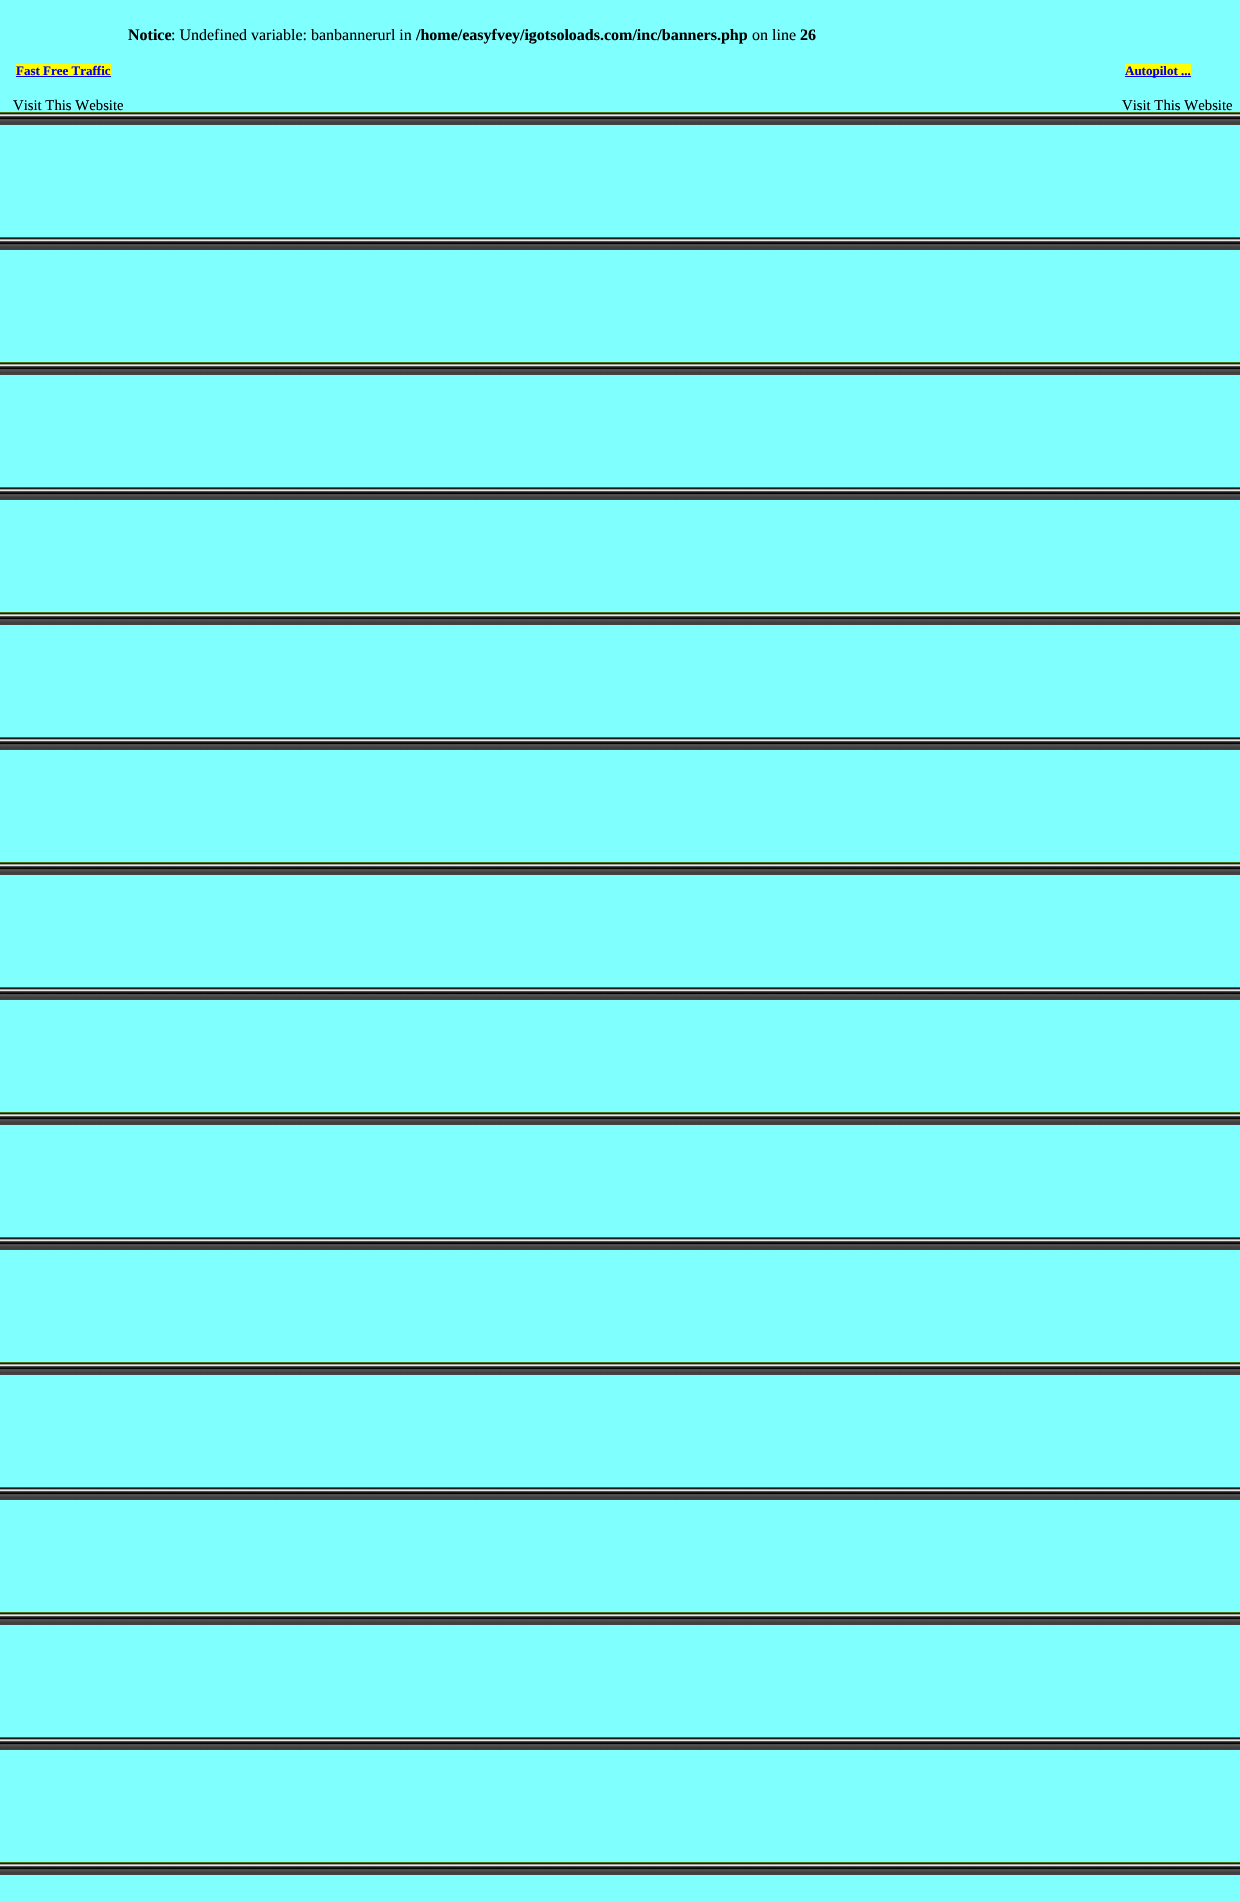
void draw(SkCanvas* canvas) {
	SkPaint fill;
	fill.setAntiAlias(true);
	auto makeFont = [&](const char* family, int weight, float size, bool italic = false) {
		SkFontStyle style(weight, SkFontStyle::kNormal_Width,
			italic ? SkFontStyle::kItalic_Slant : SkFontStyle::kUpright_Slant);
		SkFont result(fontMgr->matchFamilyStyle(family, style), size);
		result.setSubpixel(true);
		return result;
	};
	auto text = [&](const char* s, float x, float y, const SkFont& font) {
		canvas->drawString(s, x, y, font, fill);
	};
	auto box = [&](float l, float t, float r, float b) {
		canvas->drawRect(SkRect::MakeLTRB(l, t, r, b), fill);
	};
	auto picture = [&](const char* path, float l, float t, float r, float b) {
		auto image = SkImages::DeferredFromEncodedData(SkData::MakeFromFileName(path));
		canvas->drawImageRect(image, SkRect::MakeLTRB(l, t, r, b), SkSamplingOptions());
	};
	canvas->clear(0xFFFFFFFF);
	picture("image0.png", 0, 0, 1240, 1902);
	fill.setColor(0xFFFFFF00);
	box(16, 64, 111, 78);
	fill.setColor(0xFF0000EE);
	box(16, 76, 111, 77);
	fill.setColor(0xFFFFFF00);
	box(1125, 64, 1191, 78);
	fill.setColor(0xFF0000EE);
	box(1125, 76, 1191, 77);
	auto font1 = makeFont("Liberation Serif", 700, 16);
	fill.setColor(0xFF000000);
	text("Notice", 128, 40, font1);
	auto font2 = makeFont("Liberation Serif", 400, 16);
	text(": Undefined variable: banbannerurl in", 171, 40, font2);
	text("/home/easyfvey/igotsoloads.com/inc/banners.php", 416, 40, font1);
	text("on line", 752, 40, font2);
	text("26", 800, 40, font1);
	auto font3 = makeFont("Liberation Serif", 700, 13);
	fill.setColor(0xFF0000EE);
	text("Fast Free Traffic", 16, 75, font3);
	auto font4 = makeFont("Liberation Serif", 400, 14.75f);
	fill.setColor(0xFF000000);
	text("Visit This Website", 13, 110, font4);
	fill.setColor(0xFF0000EE);
	text("Autopilot ...", 1125, 75, font3);
	fill.setColor(0xFF000000);
	text("Visit This Website", 1122, 110, font4);
}
